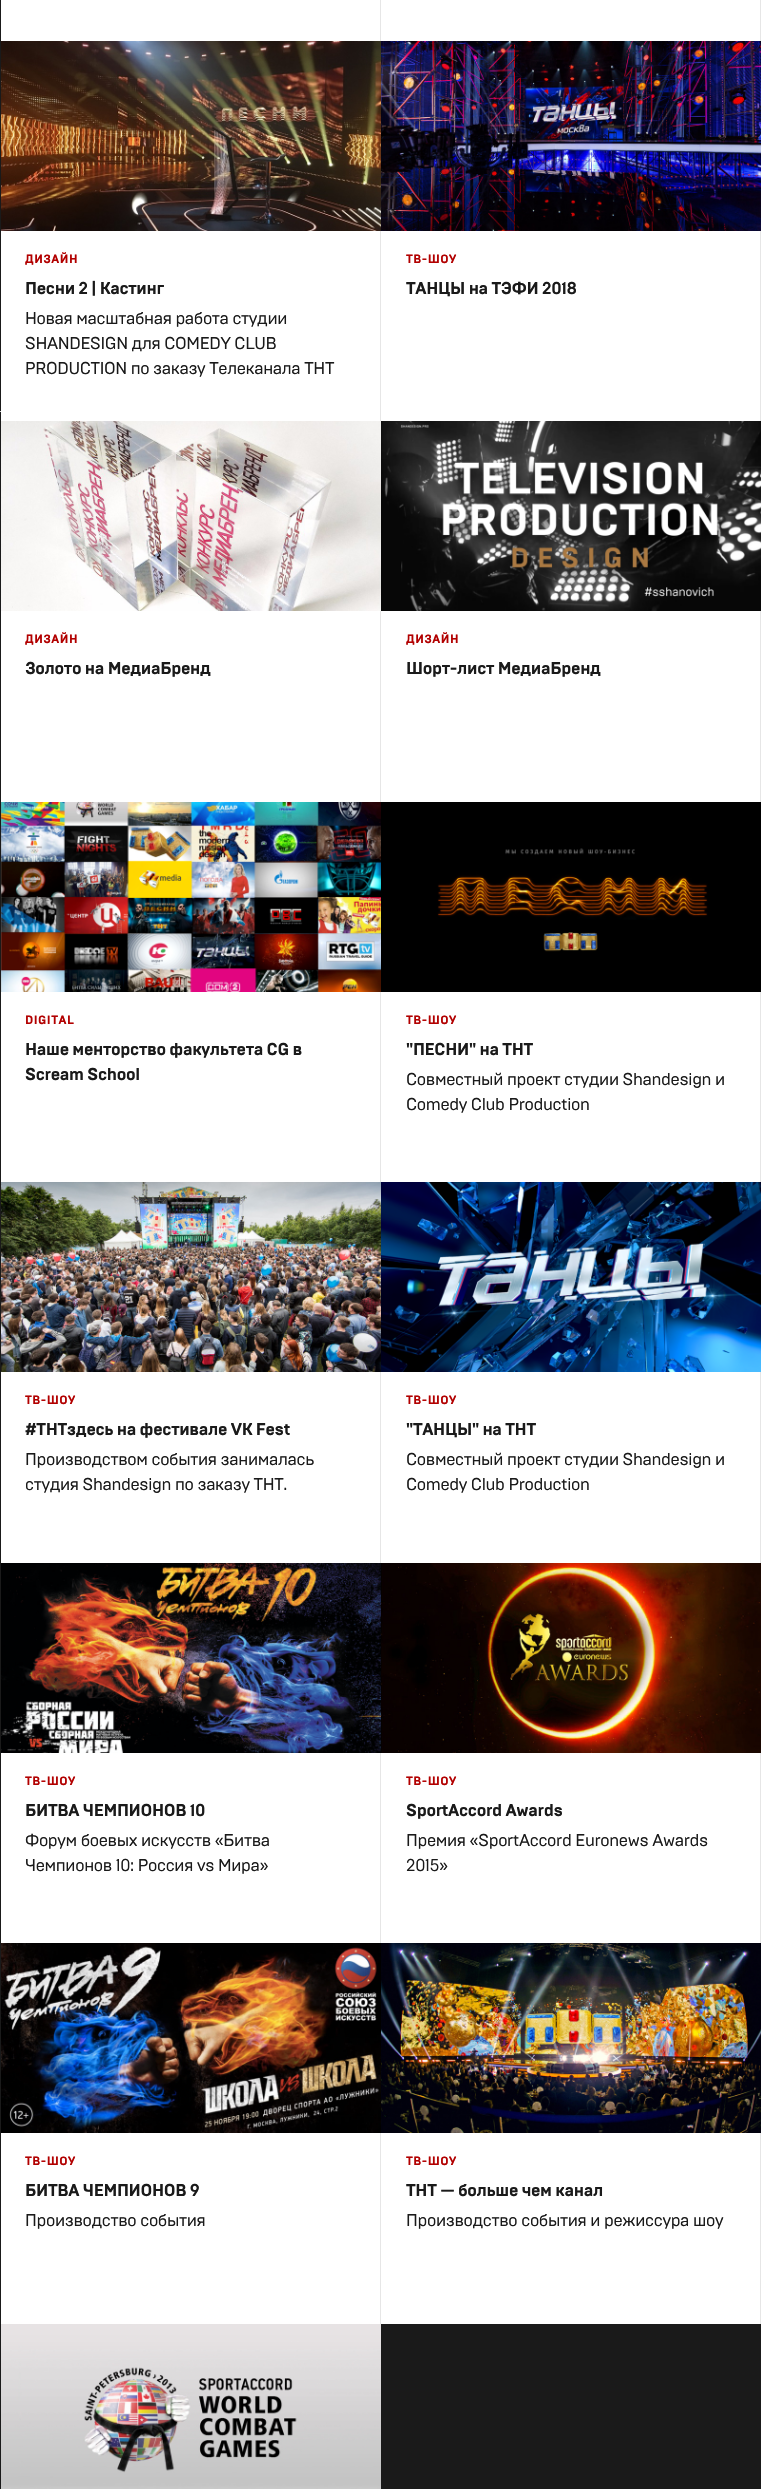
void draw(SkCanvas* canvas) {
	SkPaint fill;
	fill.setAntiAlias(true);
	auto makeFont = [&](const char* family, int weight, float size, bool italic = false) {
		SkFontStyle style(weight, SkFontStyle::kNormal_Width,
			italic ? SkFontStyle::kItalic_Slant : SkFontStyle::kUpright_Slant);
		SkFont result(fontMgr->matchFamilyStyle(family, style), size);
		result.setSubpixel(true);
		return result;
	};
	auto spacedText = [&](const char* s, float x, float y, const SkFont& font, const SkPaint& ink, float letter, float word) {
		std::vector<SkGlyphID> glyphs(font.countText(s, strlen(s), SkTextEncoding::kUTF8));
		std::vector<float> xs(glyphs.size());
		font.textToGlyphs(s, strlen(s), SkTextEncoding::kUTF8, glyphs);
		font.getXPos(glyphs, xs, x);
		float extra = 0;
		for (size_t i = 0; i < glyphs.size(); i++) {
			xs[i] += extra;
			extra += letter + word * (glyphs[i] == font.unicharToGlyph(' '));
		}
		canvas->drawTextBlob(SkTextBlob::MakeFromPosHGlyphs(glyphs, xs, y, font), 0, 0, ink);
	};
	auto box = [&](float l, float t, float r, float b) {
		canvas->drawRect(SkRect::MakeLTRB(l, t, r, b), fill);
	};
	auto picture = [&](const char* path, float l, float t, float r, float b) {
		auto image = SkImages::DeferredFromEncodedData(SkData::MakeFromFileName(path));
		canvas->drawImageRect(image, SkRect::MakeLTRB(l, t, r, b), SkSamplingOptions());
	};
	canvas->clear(0xFF1A1A1A);
	fill.setColor(0xFFD9D9D9);
	box(0, 411, 1, 412);
	fill.setColor(0xFFFFFFFF);
	box(1, 0, 380, 41);
	fill.setColor(0xFFE6E6E6);
	box(380, 0, 381, 41);
	fill.setColor(0xFFFFFFFF);
	box(381, 0, 760, 41);
	fill.setColor(0xFFE6E6E6);
	box(760, 0, 761, 41);
	fill.setColor(0xFFFFFFFF);
	box(1, 231, 380, 421);
	fill.setColor(0xFFE6E6E6);
	box(380, 231, 381, 421);
	picture("image0.png", 1, 41, 381, 231);
	fill.setColor(0xFFFFFFFF);
	box(381, 231, 760, 421);
	fill.setColor(0xFFE6E6E6);
	box(760, 231, 761, 421);
	picture("image1.png", 381, 41, 761, 231);
	fill.setColor(0xFFFFFFFF);
	box(1, 611, 380, 802);
	fill.setColor(0xFFE6E6E6);
	box(380, 611, 381, 802);
	picture("image2.png", 1, 421, 381, 611);
	fill.setColor(0xFFFFFFFF);
	box(381, 611, 760, 802);
	fill.setColor(0xFFE6E6E6);
	box(760, 611, 761, 802);
	picture("image3.png", 381, 421, 761, 611);
	fill.setColor(0xFFFFFFFF);
	box(1, 992, 380, 1182);
	fill.setColor(0xFFE6E6E6);
	box(380, 992, 381, 1182);
	picture("image4.png", 1, 802, 381, 992);
	fill.setColor(0xFFFFFFFF);
	box(381, 992, 760, 1182);
	fill.setColor(0xFFE6E6E6);
	box(760, 992, 761, 1182);
	picture("image5.png", 381, 802, 761, 992);
	fill.setColor(0xFFFFFFFF);
	box(1, 1372, 380, 1563);
	fill.setColor(0xFFE6E6E6);
	box(380, 1372, 381, 1563);
	picture("image6.png", 1, 1182, 381, 1372);
	fill.setColor(0xFFFFFFFF);
	box(381, 1372, 760, 1563);
	fill.setColor(0xFFE6E6E6);
	box(760, 1372, 761, 1563);
	picture("image7.png", 381, 1182, 761, 1372);
	fill.setColor(0xFFFFFFFF);
	box(1, 1753, 380, 1943);
	fill.setColor(0xFFE6E6E6);
	box(380, 1753, 381, 1943);
	picture("image8.png", 1, 1563, 381, 1753);
	fill.setColor(0xFFFFFFFF);
	box(381, 1753, 760, 1943);
	fill.setColor(0xFFE6E6E6);
	box(760, 1753, 761, 1943);
	picture("image9.png", 381, 1563, 761, 1753);
	fill.setColor(0xFFFFFFFF);
	box(1, 2133, 380, 2324);
	fill.setColor(0xFFE6E6E6);
	box(380, 2133, 381, 2324);
	picture("image10.png", 1, 1943, 381, 2133);
	fill.setColor(0xFFFFFFFF);
	box(381, 2133, 760, 2324);
	fill.setColor(0xFFE6E6E6);
	box(760, 2133, 761, 2324);
	picture("image11.png", 381, 1943, 761, 2133);
	picture("image12.png", 1, 2324, 381, 2489);
	auto font1 = makeFont("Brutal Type", 700, 12);
	fill.setColor(0xFFB20000);
	spacedText("ДИЗАЙН", 25, 263, font1, fill, 0.5f, 0);
	auto font2 = makeFont("Brutal Type", 700, 17);
	fill.setColor(0xFF1A1A1A);
	spacedText("Песни 2 | Кастинг", 25, 294, font2, fill, -0.35f, 0);
	auto font3 = makeFont("Brutal Type", 400, 17);
	spacedText("Новая масштабная работа студии", 25, 324, font3, fill, -0.35f, 0);
	spacedText("SHANDESIGN для COMEDY CLUB", 25, 349, font3, fill, -0.35f, 0);
	spacedText("PRODUCTION по заказу Телеканала ТНТ", 25, 374, font3, fill, -0.35f, 0);
	fill.setColor(0xFFB20000);
	spacedText("ТВ-ШОУ", 406, 263, font1, fill, 0.5f, 0);
	fill.setColor(0xFF1A1A1A);
	spacedText("ТАНЦЫ на ТЭФИ 2018", 406, 294, font2, fill, -0.35f, 0);
	fill.setColor(0xFFB20000);
	spacedText("ДИЗАЙН", 25, 643, font1, fill, 0.5f, 0);
	fill.setColor(0xFF1A1A1A);
	spacedText("Золото на МедиаБренд", 25, 674, font2, fill, -0.35f, 0);
	fill.setColor(0xFFB20000);
	spacedText("ДИЗАЙН", 406, 643, font1, fill, 0.5f, 0);
	fill.setColor(0xFF1A1A1A);
	spacedText("Шорт-лист МедиаБренд", 406, 674, font2, fill, -0.35f, 0);
	fill.setColor(0xFFB20000);
	spacedText("DIGITAL", 25, 1024, font1, fill, 0.5f, 0);
	fill.setColor(0xFF1A1A1A);
	spacedText("Наше менторство факультета CG в", 25, 1055, font2, fill, -0.35f, 0);
	spacedText("Scream School", 25, 1080, font2, fill, -0.35f, 0);
	fill.setColor(0xFFB20000);
	spacedText("ТВ-ШОУ", 406, 1024, font1, fill, 0.5f, 0);
	fill.setColor(0xFF1A1A1A);
	spacedText("\"ПЕСНИ\" на ТНТ", 406, 1055, font2, fill, -0.35f, 0);
	spacedText("Cовместный проект студии Shandesign и", 406, 1085, font3, fill, -0.35f, 0);
	spacedText("Comedy Club Production", 406, 1110, font3, fill, -0.35f, 0);
	fill.setColor(0xFFB20000);
	spacedText("ТВ-ШОУ", 25, 1404, font1, fill, 0.5f, 0);
	fill.setColor(0xFF1A1A1A);
	spacedText("#ТНТздесь на фестивале VK Fest", 25, 1435, font2, fill, -0.35f, 0);
	spacedText("Производством события занималась", 25, 1465, font3, fill, -0.35f, 0);
	spacedText("студия Shandesign по заказу ТНТ.", 25, 1490, font3, fill, -0.35f, 0);
	fill.setColor(0xFFB20000);
	spacedText("ТВ-ШОУ", 406, 1404, font1, fill, 0.5f, 0);
	fill.setColor(0xFF1A1A1A);
	spacedText("\"ТАНЦЫ\" на ТНТ", 406, 1435, font2, fill, -0.35f, 0);
	spacedText("Cовместный проект студии Shandesign и", 406, 1465, font3, fill, -0.35f, 0);
	spacedText("Comedy Club Production", 406, 1490, font3, fill, -0.35f, 0);
	fill.setColor(0xFFB20000);
	spacedText("ТВ-ШОУ", 25, 1785, font1, fill, 0.5f, 0);
	fill.setColor(0xFF1A1A1A);
	spacedText("БИТВА ЧЕМПИОНОВ 10", 25, 1816, font2, fill, -0.35f, 0);
	spacedText("Форум боевых искусств «Битва", 25, 1846, font3, fill, -0.35f, 0);
	spacedText("Чемпионов 10: Россия vs Мира»", 25, 1871, font3, fill, -0.35f, 0);
	fill.setColor(0xFFB20000);
	spacedText("ТВ-ШОУ", 406, 1785, font1, fill, 0.5f, 0);
	fill.setColor(0xFF1A1A1A);
	spacedText("SportAccord Awards", 406, 1816, font2, fill, -0.35f, 0);
	spacedText("Премия «SportAccord Euronews Awards", 406, 1846, font3, fill, -0.35f, 0);
	spacedText("2015»", 406, 1871, font3, fill, -0.35f, 0);
	fill.setColor(0xFFB20000);
	spacedText("ТВ-ШОУ", 25, 2165, font1, fill, 0.5f, 0);
	fill.setColor(0xFF1A1A1A);
	spacedText("БИТВА ЧЕМПИОНОВ 9", 25, 2196, font2, fill, -0.35f, 0);
	spacedText("Производство события", 25, 2226, font3, fill, -0.35f, 0);
	fill.setColor(0xFFB20000);
	spacedText("ТВ-ШОУ", 406, 2165, font1, fill, 0.5f, 0);
	fill.setColor(0xFF1A1A1A);
	spacedText("ТНТ — больше чем канал", 406, 2196, font2, fill, -0.35f, 0);
	spacedText("Производство события и режиссура шоу", 406, 2226, font3, fill, -0.35f, 0);
}
